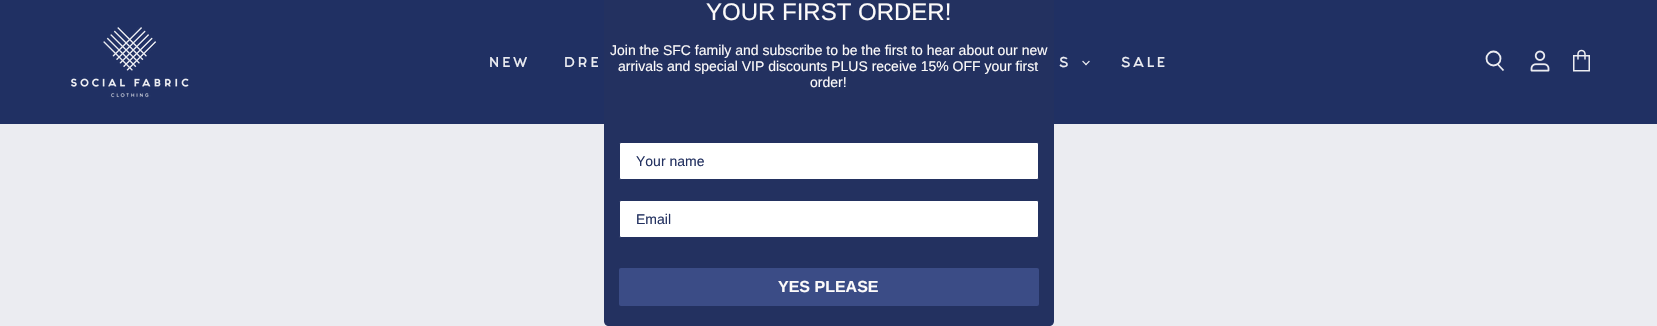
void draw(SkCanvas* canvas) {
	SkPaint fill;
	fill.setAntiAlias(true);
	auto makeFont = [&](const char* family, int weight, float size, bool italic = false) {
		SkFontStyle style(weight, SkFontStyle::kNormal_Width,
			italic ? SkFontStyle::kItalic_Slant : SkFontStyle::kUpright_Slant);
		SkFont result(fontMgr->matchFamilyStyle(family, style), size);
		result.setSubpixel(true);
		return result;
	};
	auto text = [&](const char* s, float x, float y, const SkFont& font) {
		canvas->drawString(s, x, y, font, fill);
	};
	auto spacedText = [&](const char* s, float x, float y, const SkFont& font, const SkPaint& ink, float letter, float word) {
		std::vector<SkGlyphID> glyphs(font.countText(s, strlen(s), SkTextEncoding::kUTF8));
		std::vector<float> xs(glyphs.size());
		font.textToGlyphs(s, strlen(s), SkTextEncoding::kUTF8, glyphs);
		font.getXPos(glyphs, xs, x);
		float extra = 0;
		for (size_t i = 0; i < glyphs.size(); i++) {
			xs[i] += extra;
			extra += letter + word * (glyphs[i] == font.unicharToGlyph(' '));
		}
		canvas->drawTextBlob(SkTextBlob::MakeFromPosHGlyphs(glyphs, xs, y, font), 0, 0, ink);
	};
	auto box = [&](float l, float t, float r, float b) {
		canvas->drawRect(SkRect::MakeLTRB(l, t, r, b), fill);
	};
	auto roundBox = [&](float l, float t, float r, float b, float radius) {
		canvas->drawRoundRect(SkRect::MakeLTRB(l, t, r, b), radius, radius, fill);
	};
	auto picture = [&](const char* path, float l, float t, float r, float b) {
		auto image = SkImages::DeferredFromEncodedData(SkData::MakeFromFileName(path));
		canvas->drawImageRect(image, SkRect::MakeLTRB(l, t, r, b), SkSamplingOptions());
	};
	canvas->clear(0xFFEBECF1);
	fill.setColor(0xFF203063);
	box(0, 0, 1657, 124);
	fill.setColor(0xFF233160);
	canvas->drawPath(SkPathBuilder().moveTo(604, 0).lineTo(1054, 0).lineTo(1054, 321).cubicTo(1054, 324, 1052, 326, 1049, 326).lineTo(609, 326).cubicTo(606, 326, 604, 324, 604, 321).close().detach(), fill);
	fill.setColor(0xFFFFFFFF);
	canvas->drawRoundRect(SkRect::MakeLTRB(619.5f, 142.5f, 1038.5f, 179.5f), 1.5f, 1.5f, fill);
	fill.setStyle(SkPaint::kStroke_Style);
	fill.setStrokeWidth(1);
	fill.setColor(0xFF233160);
	canvas->drawRoundRect(SkRect::MakeLTRB(619.5f, 142.5f, 1038.5f, 179.5f), 1.5f, 1.5f, fill);
	fill.setStyle(SkPaint::kFill_Style);
	fill.setColor(0xFFFFFFFF);
	canvas->drawRoundRect(SkRect::MakeLTRB(619.5f, 200.5f, 1038.5f, 237.5f), 1.5f, 1.5f, fill);
	fill.setStyle(SkPaint::kStroke_Style);
	fill.setColor(0xFF233160);
	canvas->drawRoundRect(SkRect::MakeLTRB(619.5f, 200.5f, 1038.5f, 237.5f), 1.5f, 1.5f, fill);
	fill.setStyle(SkPaint::kFill_Style);
	fill.setColor(0xFF3B4C86);
	roundBox(619, 268, 1039, 306, 2);
	picture("image0.png", 71, 27, 189, 98);
	picture("image1.png", 1082, 60, 1090, 66);
	fill.setStyle(SkPaint::kStroke_Style);
	fill.setStrokeWidth(1.8f);
	fill.setColor(0xFFEBECF1);
	canvas->drawPath(SkPathBuilder().moveTo(1503.5f, 70.5f).lineTo(1497.5f, 64).detach(), fill);
	canvas->drawCircle(1493.5f, 58.5f, 7, fill);
	picture("image2.png", 1530, 50, 1550, 72);
	picture("image3.png", 1573, 49, 1590, 72);
	auto font1 = makeFont("Liberation Sans", 400, 24);
	fill.setStyle(SkPaint::kFill_Style);
	fill.setColor(0xFFFCFAFA);
	text("YOUR FIRST ORDER!", 706, 20, font1);
	auto font2 = makeFont("Liberation Sans", 400, 14);
	text("Join the SFC family and subscribe to be the first to hear about our new", 610, 55, font2);
	text("arrivals and special VIP discounts PLUS receive 15% OFF your first", 618, 71, font2);
	text("order!", 810, 87, font2);
	fill.setColor(0xFF233160);
	text("Your name", 636, 166, font2);
	text("Email", 636, 224, font2);
	auto font3 = makeFont("Liberation Sans", 700, 16);
	fill.setColor(0xFFFCFAFA);
	text("YES PLEASE", 778, 292, font3);
	auto font4 = makeFont("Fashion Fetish", 700, 12);
	fill.setColor(0xFFEBECF1);
	spacedText("NEW", 489, 67, font4, fill, 3, 0);
	spacedText("DRE", 564, 67, font4, fill, 3, 0);
	spacedText("S", 1059, 67, font4, fill, 3, 0);
	spacedText("SALE", 1121, 67, font4, fill, 3, 0);
}
